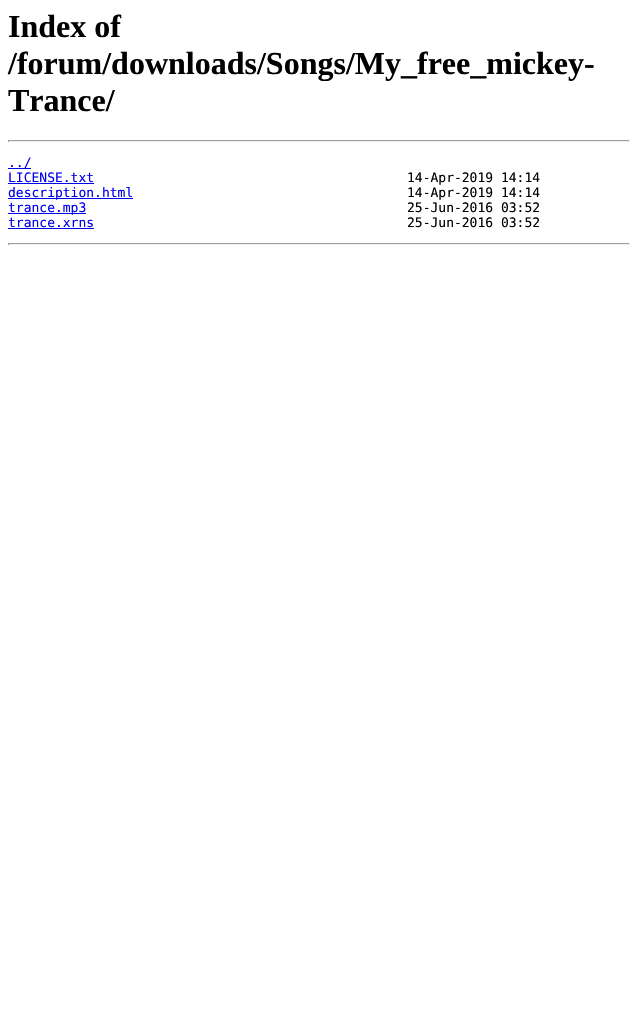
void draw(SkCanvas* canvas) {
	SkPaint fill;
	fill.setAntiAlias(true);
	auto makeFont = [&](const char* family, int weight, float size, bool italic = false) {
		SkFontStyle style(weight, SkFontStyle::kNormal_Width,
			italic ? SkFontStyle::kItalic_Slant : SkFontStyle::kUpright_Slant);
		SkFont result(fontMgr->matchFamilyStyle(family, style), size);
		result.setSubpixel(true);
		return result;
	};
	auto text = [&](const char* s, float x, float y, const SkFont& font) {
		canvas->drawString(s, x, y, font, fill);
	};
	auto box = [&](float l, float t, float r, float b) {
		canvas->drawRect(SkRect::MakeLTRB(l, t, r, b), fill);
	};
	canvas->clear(0xFFFFFFFF);
	fill.setColor(0xFF9F9F9F);
	box(8, 140, 630, 141);
	fill.setColor(0xFFEEEEEE);
	box(629, 140, 630, 142);
	box(8, 141, 630, 142);
	fill.setColor(0xFF9F9F9F);
	box(8, 140, 9, 142);
	fill.setColor(0xFF0000EE);
	box(8, 168, 31, 169);
	box(8, 183, 94, 184);
	box(8, 198, 133, 199);
	box(8, 213, 86, 214);
	box(8, 228, 94, 229);
	fill.setColor(0xFF9F9F9F);
	box(8, 243, 630, 244);
	fill.setColor(0xFFEEEEEE);
	box(629, 243, 630, 245);
	box(8, 244, 630, 245);
	fill.setColor(0xFF9F9F9F);
	box(8, 243, 9, 245);
	auto font1 = makeFont("Liberation Serif", 700, 32);
	fill.setColor(0xFF000000);
	text("Index of", 8, 37, font1);
	text("/forum/downloads/Songs/My_free_mickey-", 8, 74, font1);
	text("Trance/", 8, 111, font1);
	auto font2 = makeFont("DejaVu Sans Mono", 400, 13);
	fill.setColor(0xFF0000EE);
	text("../", 8, 167, font2);
	text("LICENSE.txt", 8, 182, font2);
	fill.setColor(0xFF000000);
	text("14-Apr-2019 14:14", 407, 182, font2);
	fill.setColor(0xFF0000EE);
	text("description.html", 8, 197, font2);
	fill.setColor(0xFF000000);
	text("14-Apr-2019 14:14", 407, 197, font2);
	fill.setColor(0xFF0000EE);
	text("trance.mp3", 8, 212, font2);
	fill.setColor(0xFF000000);
	text("25-Jun-2016 03:52", 407, 212, font2);
	fill.setColor(0xFF0000EE);
	text("trance.xrns", 8, 227, font2);
	fill.setColor(0xFF000000);
	text("25-Jun-2016 03:52", 407, 227, font2);
}
